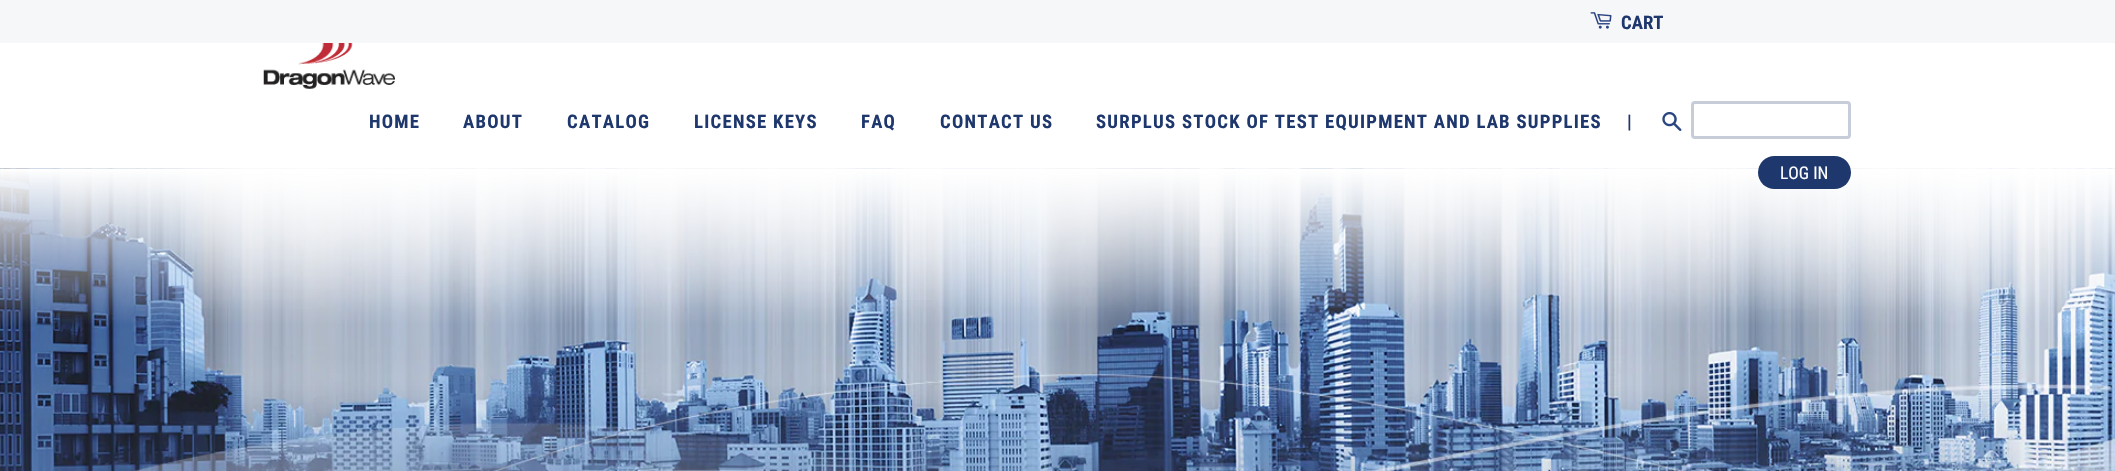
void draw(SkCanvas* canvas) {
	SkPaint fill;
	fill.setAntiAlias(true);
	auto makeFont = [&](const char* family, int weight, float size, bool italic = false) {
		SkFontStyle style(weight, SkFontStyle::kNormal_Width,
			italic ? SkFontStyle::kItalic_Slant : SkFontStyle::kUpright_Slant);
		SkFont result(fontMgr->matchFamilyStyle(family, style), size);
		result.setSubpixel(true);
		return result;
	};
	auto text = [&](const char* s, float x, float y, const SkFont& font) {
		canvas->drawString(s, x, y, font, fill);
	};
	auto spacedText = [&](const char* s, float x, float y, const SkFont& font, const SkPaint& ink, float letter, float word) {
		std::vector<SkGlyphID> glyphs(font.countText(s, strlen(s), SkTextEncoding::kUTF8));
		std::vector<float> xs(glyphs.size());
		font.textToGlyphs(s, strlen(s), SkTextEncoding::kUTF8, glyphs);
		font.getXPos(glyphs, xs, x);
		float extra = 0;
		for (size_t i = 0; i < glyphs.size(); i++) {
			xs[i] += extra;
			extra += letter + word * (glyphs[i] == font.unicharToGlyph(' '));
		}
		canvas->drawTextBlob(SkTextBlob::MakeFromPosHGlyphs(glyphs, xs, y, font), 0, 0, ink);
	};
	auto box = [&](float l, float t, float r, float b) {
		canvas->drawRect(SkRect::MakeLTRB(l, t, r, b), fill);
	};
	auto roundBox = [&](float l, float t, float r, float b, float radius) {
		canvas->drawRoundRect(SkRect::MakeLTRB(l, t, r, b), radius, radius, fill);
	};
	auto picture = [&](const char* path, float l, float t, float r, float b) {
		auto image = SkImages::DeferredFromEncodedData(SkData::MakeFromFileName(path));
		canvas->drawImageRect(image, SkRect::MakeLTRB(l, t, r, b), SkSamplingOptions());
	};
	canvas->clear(0xFFFFFFFF);
	fill.setColor(0xFFF6F7F9);
	box(0, 0, 2115, 43);
	picture("image0.png", 1590, 12, 1612, 29);
	picture("image1.png", 263, 43, 395, 89);
	picture("image2.png", 1662, 111, 1682, 131);
	fill.setStyle(SkPaint::kStroke_Style);
	fill.setStrokeWidth(3);
	fill.setColor(0xFFC6CCD8);
	canvas->drawRoundRect(SkRect::MakeLTRB(1692.5f, 102.5f, 1849.5f, 137.5f), 2.5f, 2.5f, fill);
	picture("image3.png", 0, 168, 2115, 471);
	fill.setStyle(SkPaint::kFill_Style);
	fill.setColor(0xFF1E376D);
	roundBox(1758, 156, 1851, 189, 16.5f);
	auto font1 = makeFont("Roboto Condensed", 700, 18.75f);
	text("CART", 1621, 29, font1);
	spacedText("HOME", 369, 128, font1, fill, 1.25f, 0);
	spacedText("ABOUT", 463, 128, font1, fill, 1.25f, 0);
	spacedText("CATALOG", 567, 128, font1, fill, 1.25f, 0);
	spacedText("LICENSE KEYS", 694, 128, font1, fill, 1.25f, 0);
	spacedText("FAQ", 861, 128, font1, fill, 1.25f, 0);
	spacedText("CONTACT US", 940, 128, font1, fill, 1.25f, 0);
	spacedText("SURPLUS STOCK OF TEST EQUIPMENT AND LAB SUPPLIES", 1096, 128, font1, fill, 1.25f, 0);
	spacedText("|", 1627, 128, font1, fill, 1.25f, 0);
	auto font2 = makeFont("Roboto Condensed", 400, 17.5f);
	fill.setColor(0xFFFFFFFF);
	text("LOG IN", 1780, 179, font2);
}
